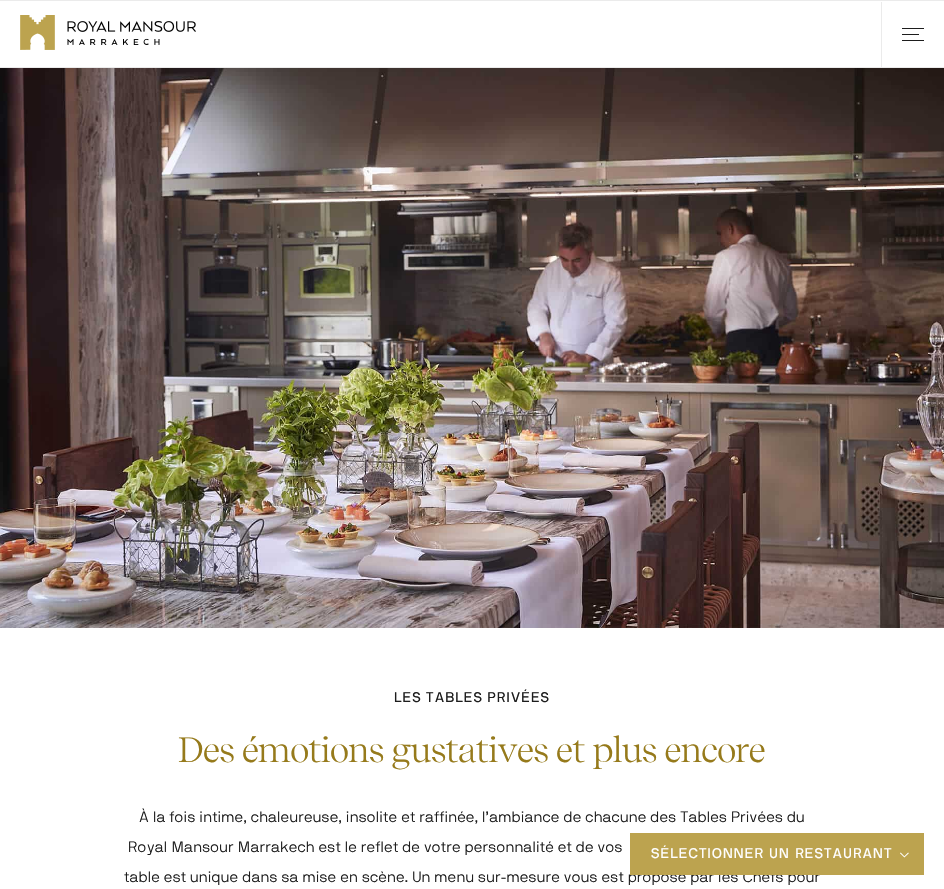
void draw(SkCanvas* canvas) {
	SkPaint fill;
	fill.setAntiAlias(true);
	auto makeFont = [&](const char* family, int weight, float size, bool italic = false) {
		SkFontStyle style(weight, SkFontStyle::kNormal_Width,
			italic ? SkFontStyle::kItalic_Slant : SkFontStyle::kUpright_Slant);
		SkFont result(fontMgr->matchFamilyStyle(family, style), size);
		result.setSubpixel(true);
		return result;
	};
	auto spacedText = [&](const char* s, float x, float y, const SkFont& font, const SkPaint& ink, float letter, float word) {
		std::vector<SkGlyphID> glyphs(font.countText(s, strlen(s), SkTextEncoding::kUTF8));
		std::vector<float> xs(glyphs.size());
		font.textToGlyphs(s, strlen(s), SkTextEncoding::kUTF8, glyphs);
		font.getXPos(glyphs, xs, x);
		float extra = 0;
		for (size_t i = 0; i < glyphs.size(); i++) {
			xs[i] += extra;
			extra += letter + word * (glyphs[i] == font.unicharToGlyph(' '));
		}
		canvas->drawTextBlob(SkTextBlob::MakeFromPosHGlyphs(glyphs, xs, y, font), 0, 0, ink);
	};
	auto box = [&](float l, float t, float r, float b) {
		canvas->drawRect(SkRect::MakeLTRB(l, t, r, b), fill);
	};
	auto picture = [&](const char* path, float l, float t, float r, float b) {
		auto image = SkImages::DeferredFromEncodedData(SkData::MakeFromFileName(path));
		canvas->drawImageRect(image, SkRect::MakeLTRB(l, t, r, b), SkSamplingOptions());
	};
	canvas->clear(0xFFFFFFFF);
	fill.setColor(0xFFEBEBEB);
	box(0, 0, 944, 1);
	box(0, 67, 944, 68);
	picture("image0.png", 20, 15, 55, 50);
	picture("image1.png", 67, 21, 196, 45);
	box(881, 2, 882, 67);
	fill.setColor(0xFF1D1D1D);
	box(902, 28, 924, 29);
	box(902, 34, 919, 35);
	box(902, 40, 924, 41);
	picture("image2.png", 0, 68, 944, 628);
	auto font1 = makeFont("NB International", 400, 14);
	spacedText("LES TABLES PRIVÉES", 394, 702, font1, fill, 1.1f, 0);
	auto font2 = makeFont("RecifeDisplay", 400, 35);
	fill.setColor(0xFF967A1B);
	spacedText("Des émotions gustatives et plus encore", 178, 762, font2, fill, -0.7f, 0);
	auto font3 = makeFont("NB International", 300, 15);
	fill.setColor(0xFF1D1D1D);
	spacedText("À la fois intime, chaleureuse, insolite et raffinée, l’ambiance de chacune des Tables Privées du", 139, 822, font3, fill, 0.15f, 0);
	spacedText("Royal Mansour Marrakech est le reflet de votre personnalité et de vos", 128, 852, font3, fill, 0.15f, 0);
	spacedText("table est unique dans sa mise en scène. Un menu sur-mesure vous est proposé par les Chefs pour", 124, 882, font3, fill, 0.15f, 0);
	fill.setColor(0xFFBCA34F);
	box(630, 833, 924, 875);
	fill.setColor(0xFFFFFFFF);
	spacedText("SÉLECTIONNER UN RESTAURANT", 651, 858, font1, fill, 1.1f, 1);
	picture("image3.png", 900, 852, 909, 858);
}
